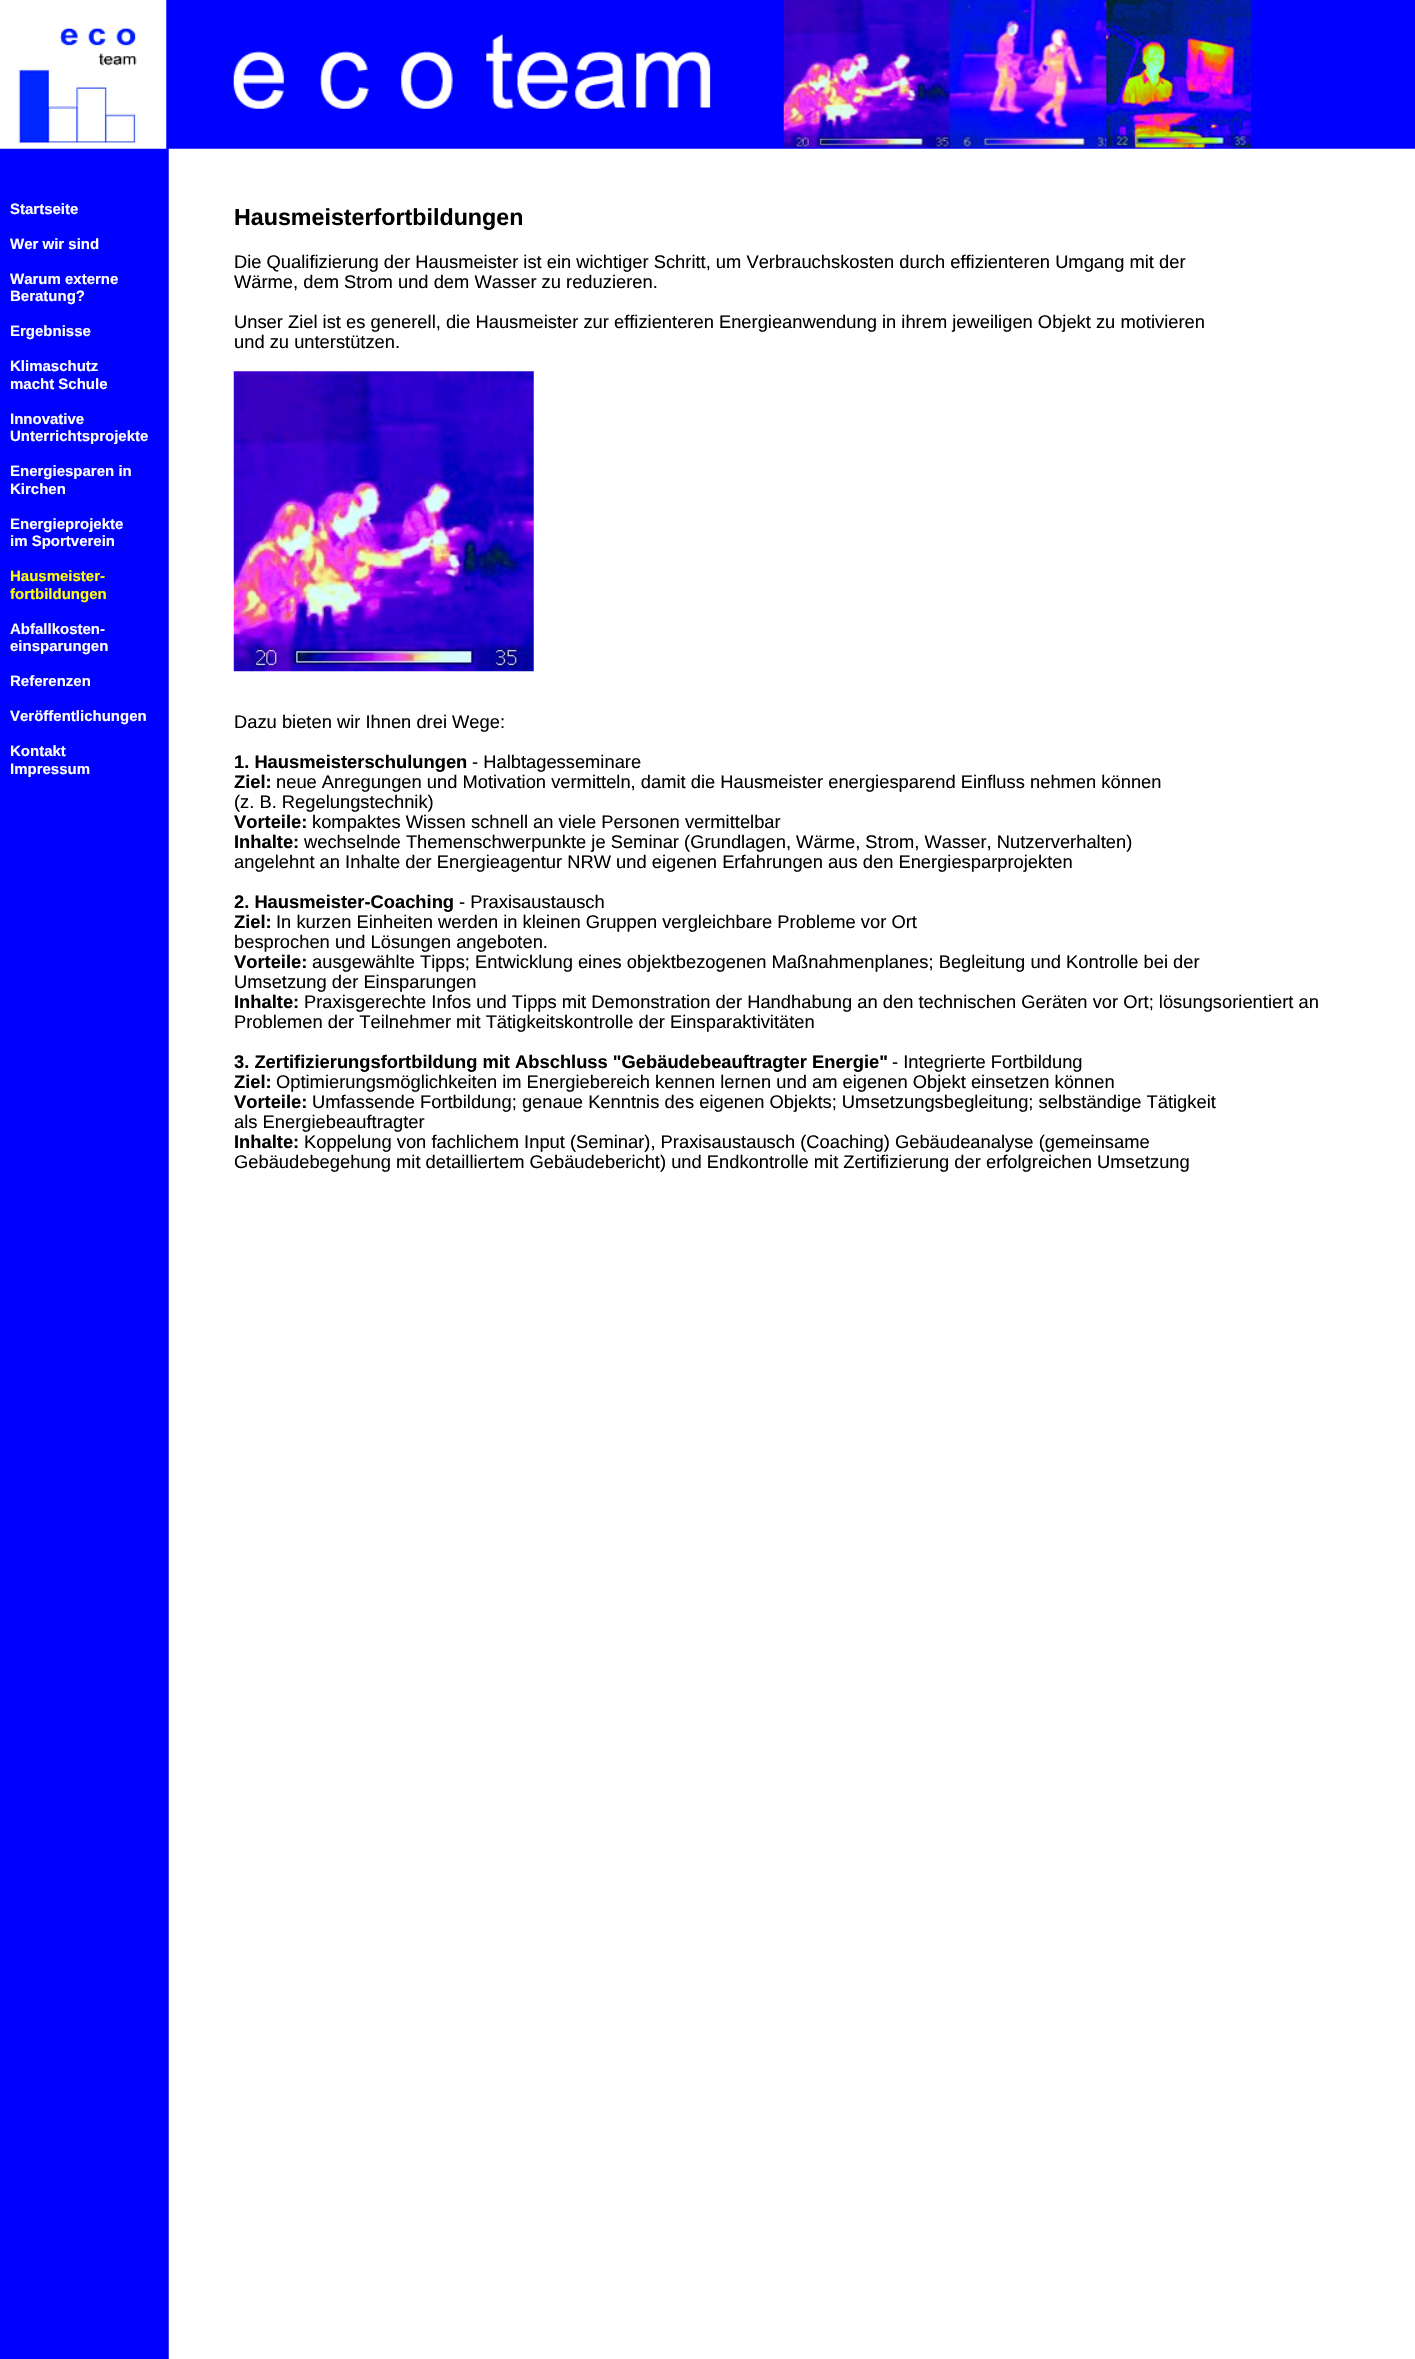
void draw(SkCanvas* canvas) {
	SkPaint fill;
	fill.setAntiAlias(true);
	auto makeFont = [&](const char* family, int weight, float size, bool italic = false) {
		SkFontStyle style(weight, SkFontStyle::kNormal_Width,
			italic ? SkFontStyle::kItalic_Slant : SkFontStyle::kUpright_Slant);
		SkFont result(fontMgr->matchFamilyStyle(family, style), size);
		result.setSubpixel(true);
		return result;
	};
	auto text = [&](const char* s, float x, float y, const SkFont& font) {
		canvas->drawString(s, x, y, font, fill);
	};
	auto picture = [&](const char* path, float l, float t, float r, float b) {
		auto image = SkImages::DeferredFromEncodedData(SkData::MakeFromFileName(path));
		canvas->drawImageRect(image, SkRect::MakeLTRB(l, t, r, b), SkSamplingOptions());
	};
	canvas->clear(0xFFFFFFFF);
	picture("image0.png", 0, 0, 1415, 2359);
	picture("image1.png", 0, 0, 167, 149);
	picture("image2.png", 233, 33, 711, 109);
	picture("image3.png", 783, 0, 1252, 148);
	picture("image4.png", 233, 371, 534, 672);
	auto font1 = makeFont("Liberation Sans", 700, 15);
	fill.setColor(0xFFFFFFFF);
	text("Startseite", 10, 214, font1);
	text("Wer wir sind", 10, 249, font1);
	text("Warum externe", 10, 284, font1);
	text("Beratung?", 10, 301, font1);
	text("Ergebnisse", 10, 336, font1);
	text("Klimaschutz", 10, 371, font1);
	text("macht Schule", 10, 389, font1);
	text("Innovative", 10, 424, font1);
	text("Unterrichtsprojekte", 10, 441, font1);
	text("Energiesparen in", 10, 476, font1);
	text("Kirchen", 10, 494, font1);
	text("Energieprojekte", 10, 529, font1);
	text("im Sportverein", 10, 546, font1);
	fill.setColor(0xFFFFFF00);
	text("Hausmeister-", 10, 581, font1);
	text("fortbildungen", 10, 599, font1);
	fill.setColor(0xFFFFFFFF);
	text("Abfallkosten-", 10, 634, font1);
	text("einsparungen", 10, 651, font1);
	text("Referenzen", 10, 686, font1);
	text("Veröffentlichungen", 10, 721, font1);
	text("Kontakt", 10, 756, font1);
	text("Impressum", 10, 774, font1);
	auto font2 = makeFont("Liberation Sans", 700, 23.25f);
	fill.setColor(0xFF000000);
	text("Hausmeisterfortbildungen", 234, 225, font2);
	auto font3 = makeFont("Liberation Sans", 400, 18.33f);
	text("Die Qualifizierung der Hausmeister ist ein wichtiger Schritt, um Verbrauchskosten durch effizienteren Umgang mit der", 234, 268, font3);
	text("Wärme, dem Strom und dem Wasser zu reduzieren.", 234, 288, font3);
	text("Unser Ziel ist es generell, die Hausmeister zur effizienteren Energieanwendung in ihrem jeweiligen Objekt zu motivieren", 234, 328, font3);
	text("und zu unterstützen.", 234, 348, font3);
	text("Dazu bieten wir Ihnen drei Wege:", 234, 728, font3);
	auto font4 = makeFont("Liberation Sans", 700, 18.33f);
	text("1. Hausmeisterschulungen", 234, 768, font4);
	text("- Halbtagesseminare", 472, 768, font3);
	text("Ziel:", 234, 788, font4);
	text("neue Anregungen und Motivation vermitteln, damit die Hausmeister energiesparend Einfluss nehmen können", 276, 788, font3);
	text("(z. B. Regelungstechnik)", 234, 808, font3);
	text("Vorteile:", 234, 828, font4);
	text("kompaktes Wissen schnell an viele Personen vermittelbar", 312, 828, font3);
	text("Inhalte:", 234, 848, font4);
	text("wechselnde Themenschwerpunkte je Seminar (Grundlagen, Wärme, Strom, Wasser, Nutzerverhalten)", 304, 848, font3);
	text("angelehnt an Inhalte der Energieagentur NRW und eigenen Erfahrungen aus den Energiesparprojekten", 234, 868, font3);
	text("2. Hausmeister-Coaching", 234, 908, font4);
	text("- Praxisaustausch", 459, 908, font3);
	text("Ziel:", 234, 928, font4);
	text("In kurzen Einheiten werden in kleinen Gruppen vergleichbare Probleme vor Ort", 276, 928, font3);
	text("besprochen und Lösungen angeboten.", 234, 948, font3);
	text("Vorteile:", 234, 968, font4);
	text("ausgewählte Tipps; Entwicklung eines objektbezogenen Maßnahmenplanes; Begleitung und Kontrolle bei der", 312, 968, font3);
	text("Umsetzung der Einsparungen", 234, 988, font3);
	text("Inhalte:", 234, 1008, font4);
	text("Praxisgerechte Infos und Tipps mit Demonstration der Handhabung an den technischen Geräten vor Ort; lösungsorientiert an", 304, 1008, font3);
	text("Problemen der Teilnehmer mit Tätigkeitskontrolle der Einsparaktivitäten", 234, 1028, font3);
	text("3. Zertifizierungsfortbildung mit Abschluss \"Gebäudebeauftragter Energie\"", 234, 1068, font4);
	text("- Integrierte Fortbildung", 892, 1068, font3);
	text("Ziel:", 234, 1088, font4);
	text("Optimierungsmöglichkeiten im Energiebereich kennen lernen und am eigenen Objekt einsetzen können", 276, 1088, font3);
	text("Vorteile:", 234, 1108, font4);
	text("Umfassende Fortbildung; genaue Kenntnis des eigenen Objekts; Umsetzungsbegleitung; selbständige Tätigkeit", 312, 1108, font3);
	text("als Energiebeauftragter", 234, 1128, font3);
	text("Inhalte:", 234, 1148, font4);
	text("Koppelung von fachlichem Input (Seminar), Praxisaustausch (Coaching) Gebäudeanalyse (gemeinsame", 304, 1148, font3);
	text("Gebäudebegehung mit detailliertem Gebäudebericht) und Endkontrolle mit Zertifizierung der erfolgreichen Umsetzung", 234, 1168, font3);
}
